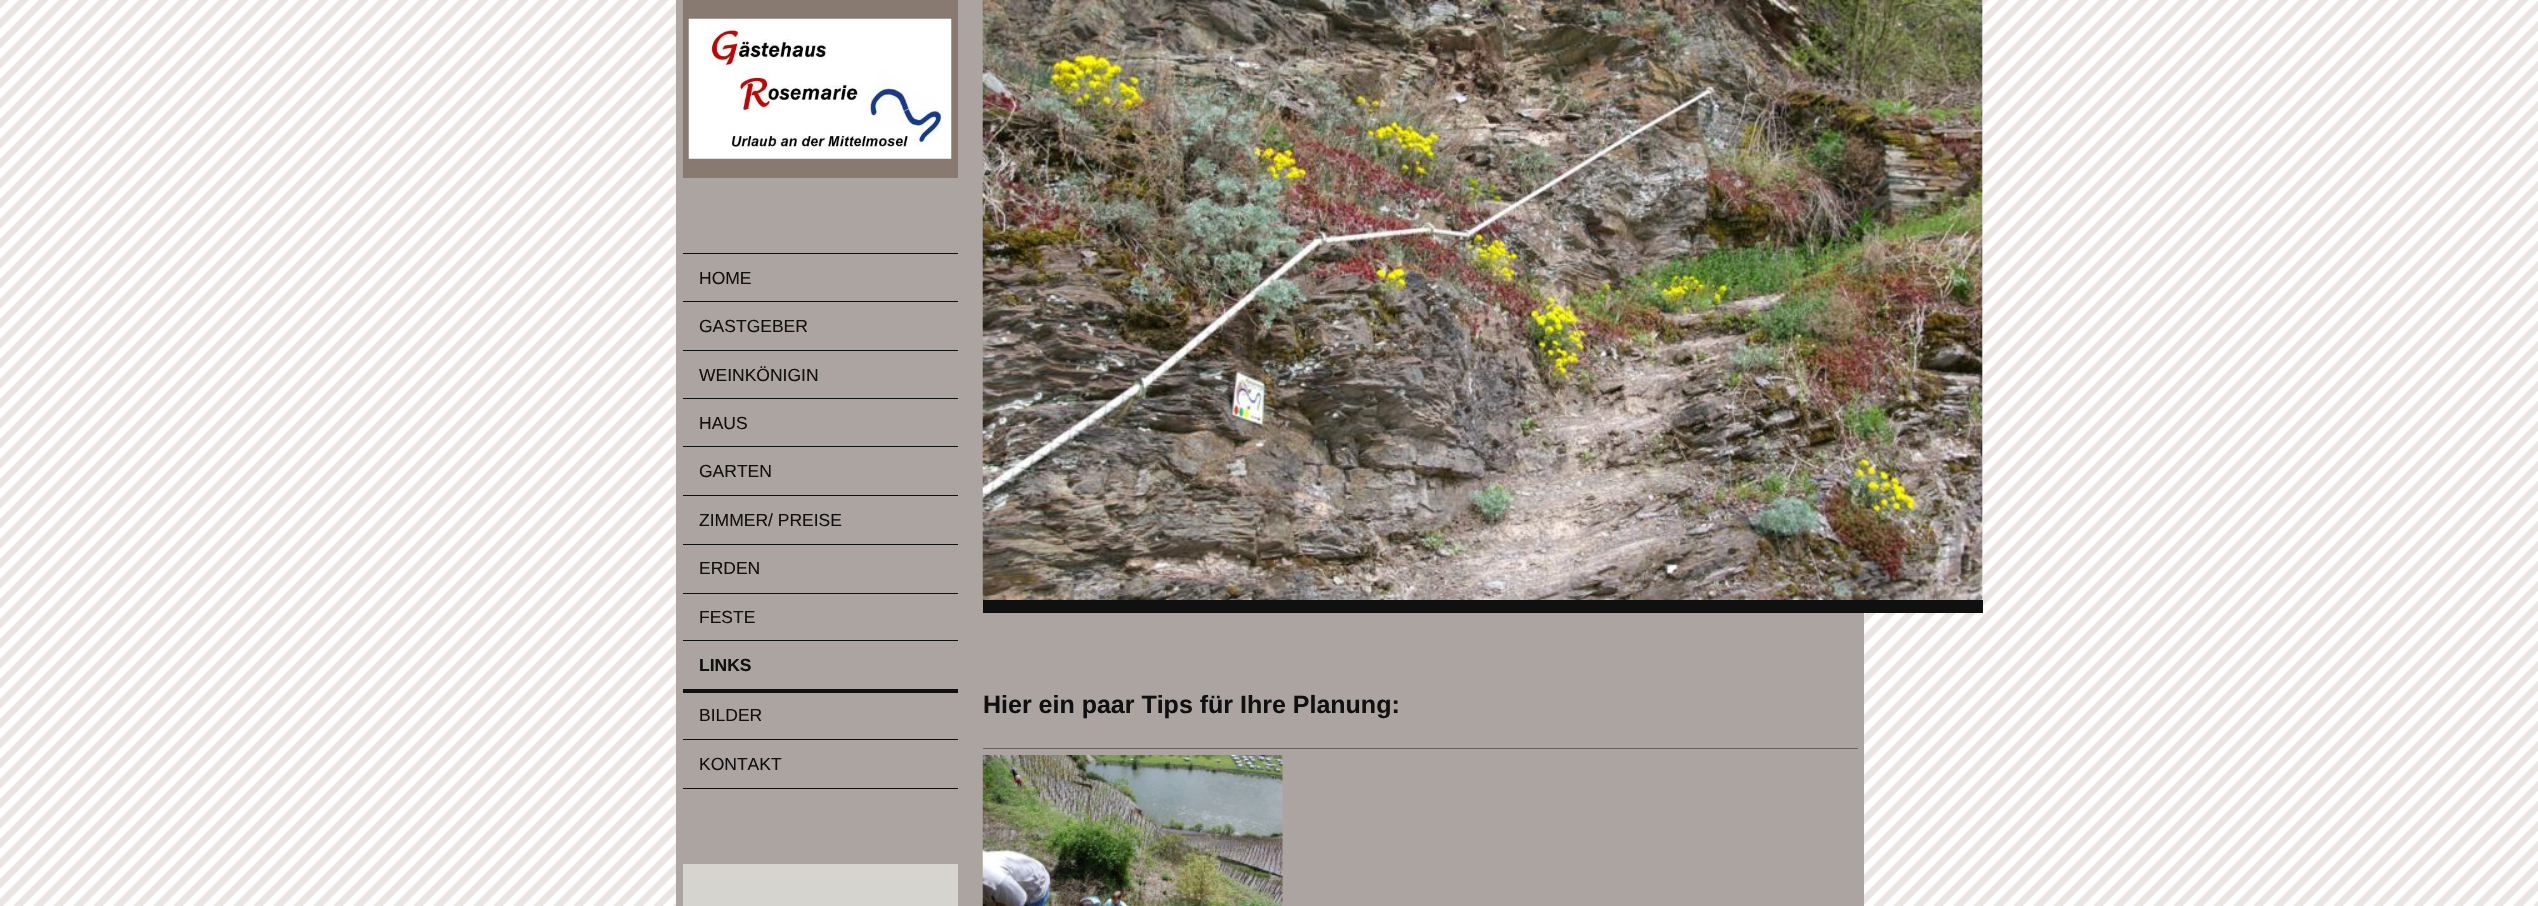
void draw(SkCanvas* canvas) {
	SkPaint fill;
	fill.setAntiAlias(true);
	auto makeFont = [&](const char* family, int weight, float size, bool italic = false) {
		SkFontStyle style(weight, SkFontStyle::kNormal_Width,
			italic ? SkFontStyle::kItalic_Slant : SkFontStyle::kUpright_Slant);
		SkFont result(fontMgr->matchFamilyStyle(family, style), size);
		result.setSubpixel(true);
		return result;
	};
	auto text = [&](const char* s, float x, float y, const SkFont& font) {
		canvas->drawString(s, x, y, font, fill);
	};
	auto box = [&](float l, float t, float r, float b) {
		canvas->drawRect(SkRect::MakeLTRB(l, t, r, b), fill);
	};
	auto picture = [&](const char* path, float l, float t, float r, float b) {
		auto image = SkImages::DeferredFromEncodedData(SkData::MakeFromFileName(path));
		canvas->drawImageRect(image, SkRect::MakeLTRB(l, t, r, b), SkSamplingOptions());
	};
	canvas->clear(0xFFEAE5E3);
	picture("image0.png", 0, 0, 2538, 906);
	fill.setColor(0xFFACA4A0);
	box(676, 0, 1864, 906);
	fill.setColor(0xFF887971);
	box(683, 0, 958, 178);
	picture("image1.png", 688, 18, 952, 159);
	fill.setColor(0xFF111010);
	box(683, 253, 958, 254);
	box(683, 301, 958, 302);
	box(683, 350, 958, 351);
	box(683, 398, 958, 399);
	box(683, 446, 958, 447);
	box(683, 495, 958, 496);
	box(683, 544, 958, 545);
	box(683, 593, 958, 594);
	box(683, 640, 958, 641);
	box(683, 689, 958, 693);
	box(683, 739, 958, 740);
	box(683, 788, 958, 789);
	fill.setColor(0xFFD5D4CF);
	box(683, 864, 958, 906);
	fill.setColor(0xFF111010);
	box(983, 600, 1983, 613);
	fill.setColor(0xFFEEEEEE);
	box(1982, 0, 1983, 600);
	picture("image2.png", 982, 0, 1983, 600);
	fill.setColor(0xFF675F5B);
	box(983, 748, 1858, 749);
	picture("image3.png", 982, 755, 1283, 906);
	auto font1 = makeFont("Liberation Sans", 400, 17.5f);
	fill.setColor(0xFF111010);
	text("HOME", 699, 284, font1);
	text("GASTGEBER", 699, 332, font1);
	text("WEINKÖNIGIN", 699, 381, font1);
	text("HAUS", 699, 429, font1);
	text("GARTEN", 699, 477, font1);
	text("ZIMMER/ PREISE", 699, 526, font1);
	text("ERDEN", 699, 574, font1);
	text("FESTE", 699, 623, font1);
	auto font2 = makeFont("Liberation Sans", 700, 17.5f);
	text("LINKS", 699, 671, font2);
	text("BILDER", 699, 721, font1);
	text("KONTAKT", 699, 770, font1);
	auto font3 = makeFont("Liberation Sans", 700, 25);
	text("Hier ein paar Tips für Ihre Planung:", 983, 713, font3);
}
